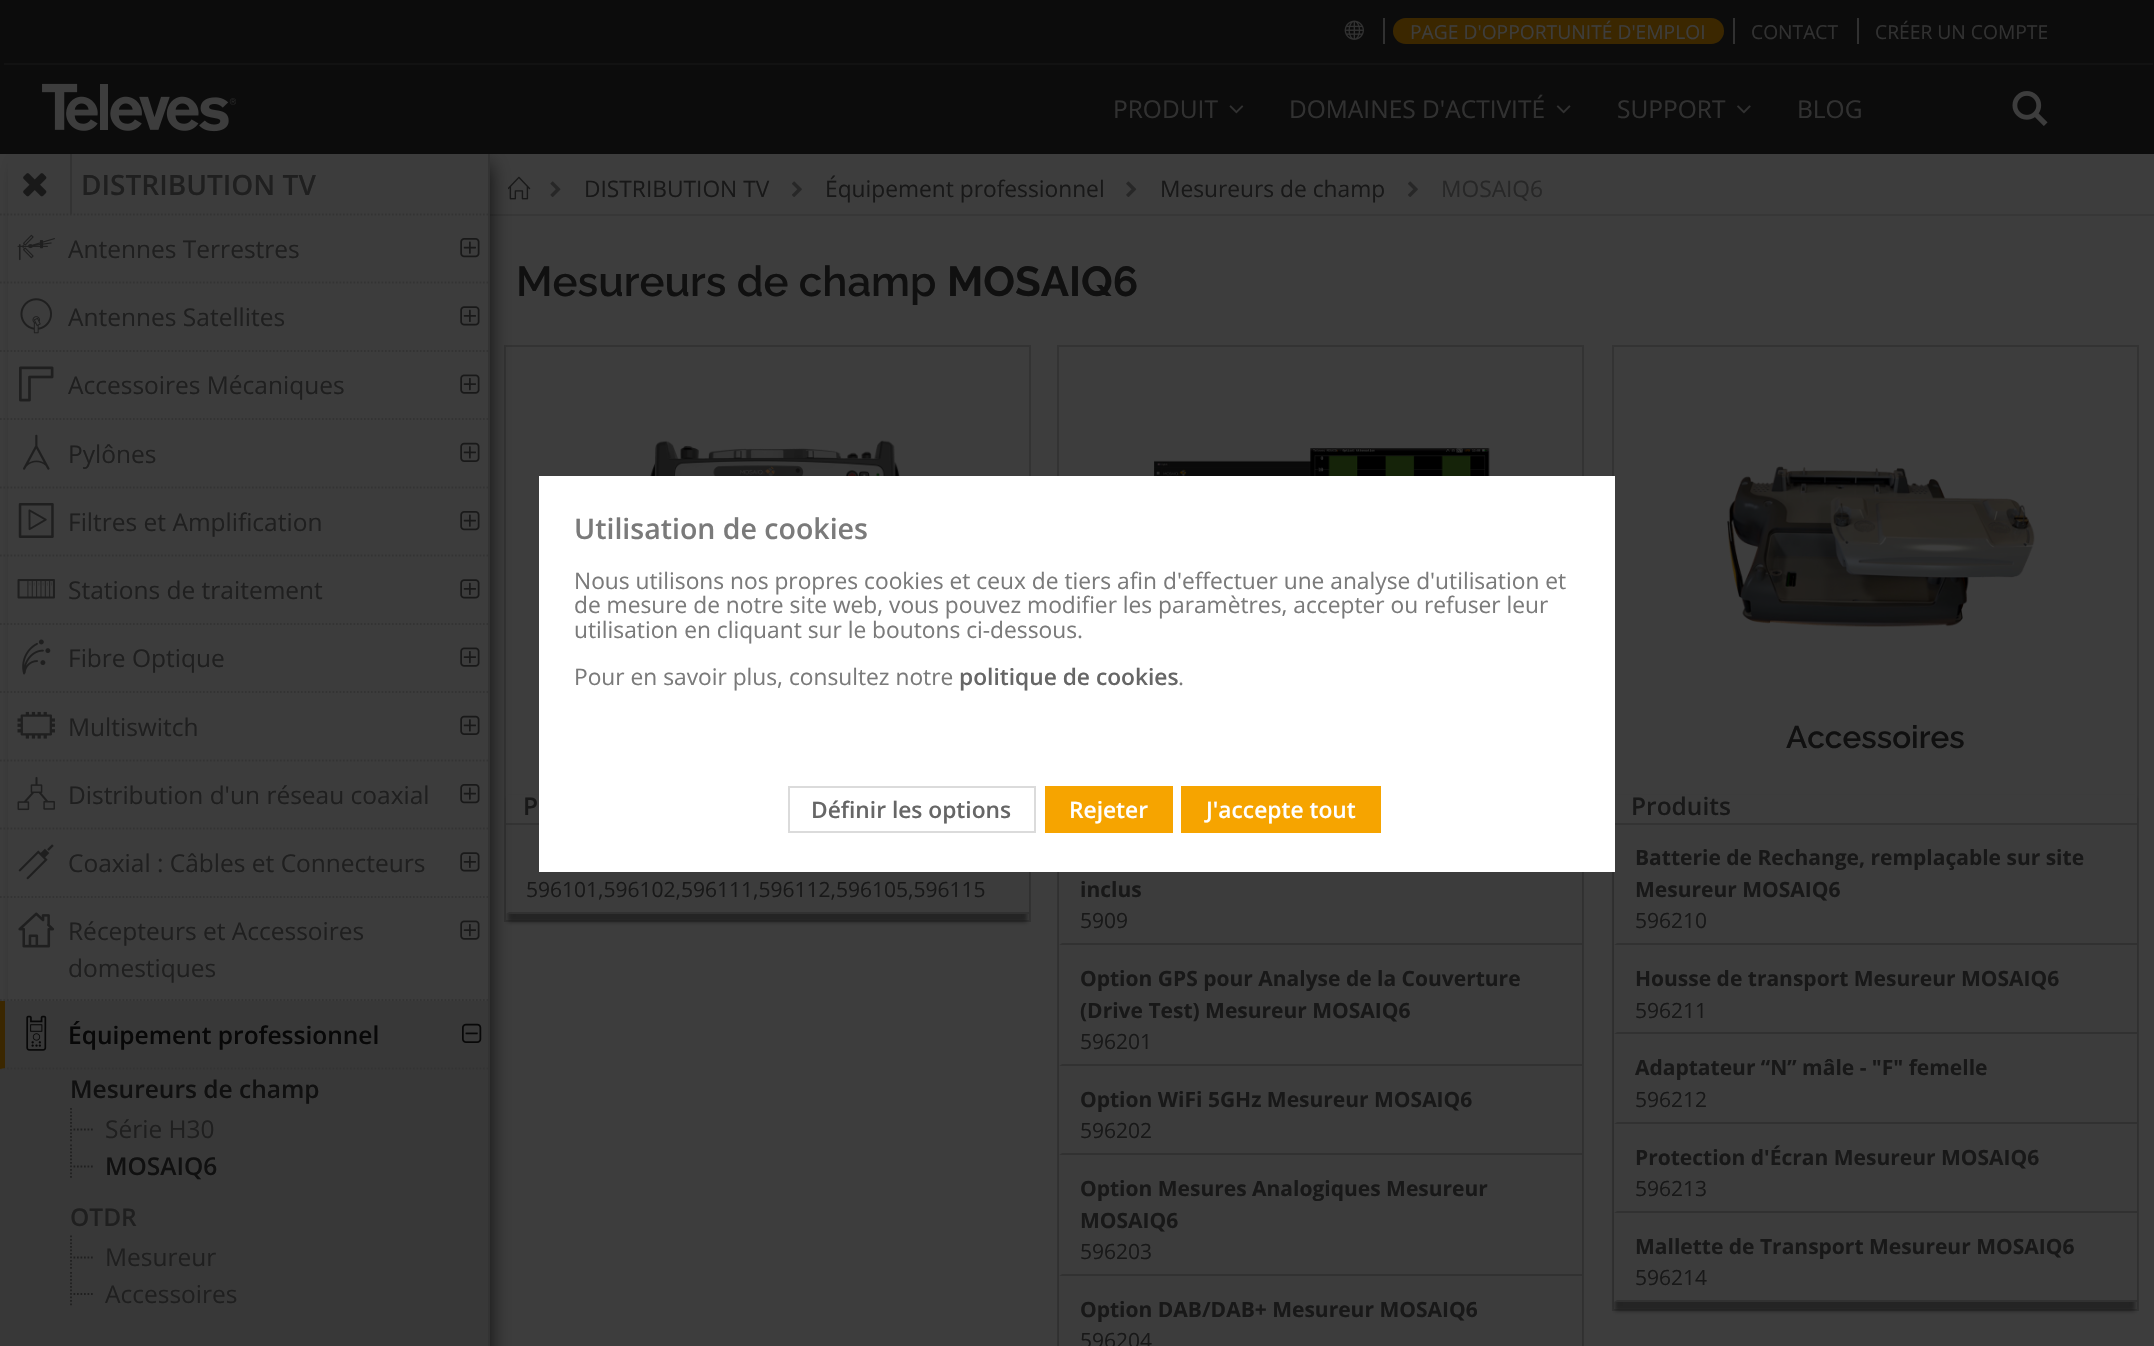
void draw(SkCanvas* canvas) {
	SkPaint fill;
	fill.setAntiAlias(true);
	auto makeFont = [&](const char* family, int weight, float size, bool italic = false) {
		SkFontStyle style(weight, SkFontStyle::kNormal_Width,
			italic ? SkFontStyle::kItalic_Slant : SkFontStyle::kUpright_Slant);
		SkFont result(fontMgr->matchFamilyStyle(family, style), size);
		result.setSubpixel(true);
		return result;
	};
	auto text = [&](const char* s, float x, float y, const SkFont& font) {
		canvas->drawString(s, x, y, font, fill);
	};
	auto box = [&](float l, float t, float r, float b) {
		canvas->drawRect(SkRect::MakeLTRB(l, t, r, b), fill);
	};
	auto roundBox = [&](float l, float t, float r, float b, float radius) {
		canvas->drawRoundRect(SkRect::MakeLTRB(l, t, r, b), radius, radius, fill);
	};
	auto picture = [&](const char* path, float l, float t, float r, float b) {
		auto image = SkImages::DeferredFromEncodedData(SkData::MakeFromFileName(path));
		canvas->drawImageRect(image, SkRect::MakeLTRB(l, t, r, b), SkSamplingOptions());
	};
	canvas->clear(0xFF3D3D3D);
	fill.setColor(0xFF373737);
	box(490, 214, 2154, 216);
	picture("image24.png", 508, 176, 531, 200);
	fill.setStyle(SkPaint::kStroke_Style);
	fill.setStrokeWidth(2);
	fill.setColor(0xFF333333);
	canvas->drawRect(SkRect::MakeLTRB(505, 346, 1030, 921), fill);
	fill.setStyle(SkPaint::kFill_Style);
	fill.setColor(0x6B000000);
	fill.setMaskFilter(SkMaskFilter::MakeBlur(kNormal_SkBlurStyle, 2));
	canvas->drawRect(SkRect::MakeLTRB(508, 798, 1027, 922), fill);
	fill.setMaskFilter(nullptr);
	fill.setColor(0xFF3C3C3C);
	box(506, 825, 1029, 914);
	fill.setColor(0xFF3D3D3D);
	box(506, 795, 539, 823);
	fill.setColor(0xFF333333);
	box(506, 823, 539, 825);
	fill.setColor(0xFF313131);
	canvas->drawPath(SkPathBuilder().moveTo(1029, 914).lineTo(506, 914).lineTo(509, 912).lineTo(1029, 912).close().detach(), fill);
	fill.setColor(0xBF000000);
	fill.setMaskFilter(SkMaskFilter::MakeBlur(kNormal_SkBlurStyle, 9.5f));
	canvas->drawRect(SkRect::MakeLTRB(21, 165, 490, 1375), fill);
	fill.setMaskFilter(nullptr);
	fill.setColor(0xFF0C0C0C);
	box(0, 0, 2154, 154);
	fill.setColor(0x1C3D3D3D);
	box(4, 63, 2153, 65);
	picture("image0.png", 1344, 20, 1364, 40);
	fill.setColor(0xFF313131);
	box(1383, 18, 1385, 44);
	fill.setColor(0xFF3B2700);
	roundBox(1393, 18, 1724, 44, 13);
	fill.setColor(0xFF313131);
	box(1733, 18, 1735, 44);
	box(1857, 18, 1859, 44);
	picture("image1.png", 42, 83, 236, 132);
	picture("image2.png", 1229, 105, 1244, 114);
	picture("image3.png", 1556, 105, 1571, 114);
	picture("image4.png", 1737, 105, 1751, 114);
	picture("image5.png", 2012, 91, 2048, 126);
	fill.setColor(0xFF3C3C3C);
	box(8, 154, 488, 1001);
	fill.setColor(0xFF333333);
	box(488, 154, 490, 1346);
	picture("image6.png", 23, 173, 47, 197);
	box(70, 154, 72, 214);
	fill.setStyle(SkPaint::kStroke_Style);
	fill.setStrokeWidth(1.8f);
	fill.setPathEffect(SkDashPathEffect::Make({{1.75f, 1.75f}}, 0));
	canvas->drawPath(SkPathBuilder().moveTo(0, 214.5f).lineTo(488, 214.5f).detach(), fill);
	fill.setPathEffect(nullptr);
	fill.setPathEffect(SkDashPathEffect::Make({{1.75f, 1.75f}}, 0));
	canvas->drawPath(SkPathBuilder().moveTo(0, 282.5f).lineTo(488, 282.5f).detach(), fill);
	fill.setPathEffect(nullptr);
	picture("image7.png", 17, 234, 55, 261);
	picture("image8.png", 460, 238, 480, 258);
	fill.setPathEffect(SkDashPathEffect::Make({{1.75f, 1.75f}}, 0));
	canvas->drawPath(SkPathBuilder().moveTo(0, 351).lineTo(488, 351).detach(), fill);
	fill.setPathEffect(nullptr);
	picture("image9.png", 20, 298, 52, 334);
	picture("image10.png", 460, 306, 480, 326);
	fill.setPathEffect(SkDashPathEffect::Make({{1.75f, 1.75f}}, 0));
	canvas->drawPath(SkPathBuilder().moveTo(0, 419).lineTo(488, 419).detach(), fill);
	fill.setPathEffect(nullptr);
	picture("image11.png", 19, 366, 54, 402);
	picture("image12.png", 460, 374, 480, 394);
	fill.setPathEffect(SkDashPathEffect::Make({{1.75f, 1.75f}}, 0));
	canvas->drawPath(SkPathBuilder().moveTo(0, 487.5f).lineTo(488, 487.5f).detach(), fill);
	fill.setPathEffect(nullptr);
	picture("image13.png", 23, 434, 50, 470);
	picture("image14.png", 460, 442, 480, 462);
	fill.setPathEffect(SkDashPathEffect::Make({{1.75f, 1.75f}}, 0));
	canvas->drawPath(SkPathBuilder().moveTo(0, 555.5f).lineTo(488, 555.5f).detach(), fill);
	fill.setPathEffect(nullptr);
	picture("image15.png", 18, 503, 54, 538);
	picture("image8.png", 460, 511, 480, 531);
	fill.setPathEffect(SkDashPathEffect::Make({{1.75f, 1.75f}}, 0));
	canvas->drawPath(SkPathBuilder().moveTo(0, 624).lineTo(488, 624).detach(), fill);
	fill.setPathEffect(nullptr);
	picture("image16.png", 17, 579, 55, 599);
	picture("image10.png", 460, 579, 480, 599);
	fill.setPathEffect(SkDashPathEffect::Make({{1.75f, 1.75f}}, 0));
	canvas->drawPath(SkPathBuilder().moveTo(0, 692).lineTo(488, 692).detach(), fill);
	fill.setPathEffect(nullptr);
	picture("image17.png", 22, 639, 51, 675);
	picture("image12.png", 460, 647, 480, 667);
	fill.setPathEffect(SkDashPathEffect::Make({{1.75f, 1.75f}}, 0));
	canvas->drawPath(SkPathBuilder().moveTo(0, 760.5f).lineTo(488, 760.5f).detach(), fill);
	fill.setPathEffect(nullptr);
	picture("image18.png", 17, 711, 55, 739);
	picture("image14.png", 460, 715, 480, 735);
	fill.setPathEffect(SkDashPathEffect::Make({{1.75f, 1.75f}}, 0));
	canvas->drawPath(SkPathBuilder().moveTo(0, 828.5f).lineTo(488, 828.5f).detach(), fill);
	fill.setPathEffect(nullptr);
	picture("image19.png", 17, 776, 55, 811);
	picture("image8.png", 460, 784, 480, 804);
	fill.setPathEffect(SkDashPathEffect::Make({{1.75f, 1.75f}}, 0));
	canvas->drawPath(SkPathBuilder().moveTo(0, 897).lineTo(488, 897).detach(), fill);
	fill.setPathEffect(nullptr);
	picture("image20.png", 18, 844, 54, 880);
	picture("image10.png", 460, 852, 480, 872);
	fill.setPathEffect(SkDashPathEffect::Make({{1.75f, 1.75f}}, 0));
	canvas->drawPath(SkPathBuilder().moveTo(0, 1000).lineTo(488, 1000).detach(), fill);
	fill.setPathEffect(nullptr);
	picture("image21.png", 18, 912, 55, 948);
	picture("image12.png", 460, 920, 480, 940);
	fill.setStyle(SkPaint::kFill_Style);
	fill.setColor(0xFF383838);
	box(0, 1001, 488, 1346);
	fill.setStyle(SkPaint::kStroke_Style);
	fill.setColor(0xFF333333);
	fill.setPathEffect(SkDashPathEffect::Make({{1.75f, 1.75f}}, 0));
	canvas->drawPath(SkPathBuilder().moveTo(0, 1068.5f).lineTo(488, 1068.5f).detach(), fill);
	fill.setPathEffect(nullptr);
	fill.setStyle(SkPaint::kFill_Style);
	fill.setColor(0xFF3B2700);
	canvas->drawPath(SkPathBuilder().moveTo(0, 1069).lineTo(0, 1001).lineTo(5, 1001).lineTo(5, 1068).close().detach(), fill);
	picture("image22.png", 26, 1015, 47, 1051);
	picture("image23.png", 462, 1023, 482, 1043);
	fill.setStyle(SkPaint::kStroke_Style);
	fill.setColor(0xFF1F1F1F);
	fill.setPathEffect(SkDashPathEffect::Make({{1.75f, 1.75f}}, 0));
	canvas->drawPath(SkPathBuilder().moveTo(73.5f, 1129.5f).lineTo(94.5f, 1129.5f).moveTo(71, 1108).lineTo(71, 1143).moveTo(73.5f, 1166.5f).lineTo(94.5f, 1166.5f).detach(), fill);
	fill.setPathEffect(nullptr);
	fill.setPathEffect(SkDashPathEffect::Make({{1.75f, 1.75f}}, 0));
	canvas->drawPath(SkPathBuilder().moveTo(71, 1144.5f).lineTo(71, 1179.5f).detach(), fill);
	fill.setPathEffect(nullptr);
	fill.setPathEffect(SkDashPathEffect::Make({{1.75f, 1.75f}}, 0));
	canvas->drawPath(SkPathBuilder().moveTo(73.5f, 1257.5f).lineTo(94.5f, 1257.5f).moveTo(71, 1235.5f).lineTo(71, 1270.5f).moveTo(73.5f, 1294).lineTo(94.5f, 1294).detach(), fill);
	fill.setPathEffect(nullptr);
	fill.setPathEffect(SkDashPathEffect::Make({{1.75f, 1.75f}}, 0));
	canvas->drawPath(SkPathBuilder().moveTo(71, 1272).lineTo(71, 1307).detach(), fill);
	fill.setPathEffect(nullptr);
	picture("image25.png", 550, 181, 561, 197);
	picture("image26.png", 792, 181, 802, 197);
	picture("image27.png", 1126, 181, 1137, 197);
	picture("image26.png", 1408, 181, 1418, 197);
	picture("image28.png", 650, 440, 900, 476);
	fill.setStrokeWidth(2);
	fill.setColor(0xFF333333);
	canvas->drawRect(SkRect::MakeLTRB(1613, 346, 2138, 1310), fill);
	picture("image29.png", 1727, 466, 2035, 627);
	fill.setStyle(SkPaint::kFill_Style);
	fill.setColor(0x6B000000);
	fill.setMaskFilter(SkMaskFilter::MakeBlur(kNormal_SkBlurStyle, 2));
	canvas->drawRect(SkRect::MakeLTRB(1615, 798, 2135, 1311), fill);
	fill.setMaskFilter(nullptr);
	fill.setColor(0xFF3C3C3C);
	box(1614, 825, 2137, 1302);
	fill.setColor(0xFF3D3D3D);
	box(1615, 795, 2137, 823);
	fill.setColor(0xFF333333);
	box(1614, 823, 2137, 825);
	fill.setColor(0xFF313131);
	canvas->drawPath(SkPathBuilder().moveTo(2137, 945).lineTo(1614, 945).lineTo(1617, 943).lineTo(2137, 943).close().detach(), fill);
	canvas->drawPath(SkPathBuilder().moveTo(2137, 1034).lineTo(1614, 1034).lineTo(1617, 1032).lineTo(2137, 1032).close().detach(), fill);
	canvas->drawPath(SkPathBuilder().moveTo(2137, 1124).lineTo(1614, 1124).lineTo(1617, 1122).lineTo(2137, 1122).close().detach(), fill);
	canvas->drawPath(SkPathBuilder().moveTo(2137, 1213).lineTo(1614, 1213).lineTo(1617, 1211).lineTo(2137, 1211).close().detach(), fill);
	canvas->drawPath(SkPathBuilder().moveTo(2137, 1302).lineTo(1614, 1302).lineTo(1617, 1300).lineTo(2137, 1300).close().detach(), fill);
	fill.setStyle(SkPaint::kStroke_Style);
	fill.setColor(0xFF333333);
	canvas->drawRect(SkRect::MakeLTRB(1058, 346, 1583, 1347), fill);
	picture("image30.png", 1154, 448, 1490, 476);
	fill.setStyle(SkPaint::kFill_Style);
	fill.setColor(0x6B000000);
	fill.setMaskFilter(SkMaskFilter::MakeBlur(kNormal_SkBlurStyle, 2));
	canvas->drawRect(SkRect::MakeLTRB(1061, 798, 1580, 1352), fill);
	fill.setMaskFilter(nullptr);
	fill.setColor(0xFF3C3C3C);
	box(1059, 872, 1582, 1346);
	fill.setColor(0xFF313131);
	canvas->drawPath(SkPathBuilder().moveTo(1582, 945).lineTo(1059, 945).lineTo(1062, 943).lineTo(1582, 943).close().detach(), fill);
	canvas->drawPath(SkPathBuilder().moveTo(1582, 1066).lineTo(1059, 1066).lineTo(1062, 1064).lineTo(1582, 1064).close().detach(), fill);
	canvas->drawPath(SkPathBuilder().moveTo(1582, 1155).lineTo(1059, 1155).lineTo(1062, 1153).lineTo(1582, 1153).close().detach(), fill);
	canvas->drawPath(SkPathBuilder().moveTo(1582, 1276).lineTo(1059, 1276).lineTo(1062, 1274).lineTo(1582, 1274).close().detach(), fill);
	fill.setColor(0xFFFFFFFF);
	box(539, 476, 1615, 872);
	fill.setStyle(SkPaint::kStroke_Style);
	fill.setColor(0xFFDBDBDB);
	canvas->drawRect(SkRect::MakeLTRB(789, 787, 1035, 832), fill);
	fill.setStyle(SkPaint::kFill_Style);
	fill.setColor(0xFFF6A400);
	box(1045, 786, 1173, 833);
	box(1181, 786, 1381, 833);
	auto font1 = makeFont("Open Sans", 400, 19.25f);
	fill.setColor(0xFF3D3D3D);
	text("PAGE D'OPPORTUNITÉ D'EMPLOI", 1410, 39, font1);
	fill.setColor(0xFF313131);
	text("CONTACT", 1751, 39, font1);
	text("CRÉER UN COMPTE", 1875, 39, font1);
	auto font2 = makeFont("Open Sans", 400, 24.5f);
	text("PRODUIT", 1113, 118, font2);
	text("DOMAINES D'ACTIVITÉ", 1289, 118, font2);
	text("SUPPORT", 1617, 118, font2);
	text("BLOG", 1797, 118, font2);
	auto font3 = makeFont("Open Sans", 600, 28);
	fill.setColor(0xFF1F1F1F);
	text("DISTRIBUTION TV", 81, 195, font3);
	text("Antennes Terrestres", 68, 258, font2);
	text("Antennes Satellites", 68, 326, font2);
	text("Accessoires Mécaniques", 68, 394, font2);
	text("Pylônes", 68, 463, font2);
	text("Filtres et Amplification", 68, 531, font2);
	text("Stations de traitement", 68, 599, font2);
	text("Fibre Optique", 68, 667, font2);
	text("Multiswitch", 68, 736, font2);
	text("Distribution d'un réseau coaxial", 68, 804, font2);
	text("Coaxial : Câbles et Connecteurs", 68, 872, font2);
	text("Récepteurs et Accessoires", 68, 940, font2);
	text("domestiques", 68, 977, font2);
	auto font4 = makeFont("Open Sans", 600, 24.5f);
	fill.setColor(0xFF080808);
	text("Équipement professionnel", 68, 1044, font4);
	fill.setColor(0xFF101010);
	text("Mesureurs de champ", 70, 1098, font4);
	fill.setColor(0xFF1F1F1F);
	text("Série H30", 105, 1138, font2);
	fill.setColor(0xFF101010);
	text("MOSAIQ6", 105, 1175, font4);
	fill.setColor(0xFF1F1F1F);
	text("OTDR", 70, 1226, font4);
	text("Mesureur", 105, 1266, font2);
	text("Accessoires", 105, 1303, font2);
	auto font5 = makeFont("Open Sans", 400, 22.75f);
	fill.setColor(0xFF181818);
	text("DISTRIBUTION TV", 584, 197, font5);
	text("Équipement professionnel", 825, 197, font5);
	text("Mesureurs de champ", 1160, 197, font5);
	fill.setColor(0xFF272727);
	text("MOSAIQ6", 1441, 197, font5);
	auto font6 = makeFont("Raleway", 600, 42);
	fill.setColor(0xFF101010);
	text("Mesureurs de champ", 516, 296, font6);
	auto font7 = makeFont("Raleway", 700, 42);
	text("MOSAIQ6", 947, 296, font7);
	fill.setColor(0xFF181818);
	text("P", 523, 815, font4);
	auto font8 = makeFont("Open Sans", 400, 21);
	text("596101,596102,596111,596112,596105,596115", 526, 897, font8);
	auto font9 = makeFont("Raleway", 600, 31.5f);
	fill.setColor(0xFF101010);
	text("Accessoires", 1786, 748, font9);
	fill.setColor(0xFF181818);
	text("Produits", 1631, 815, font4);
	auto font10 = makeFont("Open Sans", 700, 21);
	text("Batterie de Rechange, remplaçable sur site", 1635, 865, font10);
	text("Mesureur MOSAIQ6", 1635, 897, font10);
	text("596210", 1635, 928, font8);
	text("Housse de transport Mesureur MOSAIQ6", 1635, 986, font10);
	text("596211", 1635, 1018, font8);
	text("Adaptateur “N” mâle - \"F\" femelle", 1635, 1075, font10);
	text("596212", 1635, 1107, font8);
	text("Protection d'Écran Mesureur MOSAIQ6", 1635, 1165, font10);
	text("596213", 1635, 1196, font8);
	text("Mallette de Transport Mesureur MOSAIQ6", 1635, 1254, font10);
	text("596214", 1635, 1285, font8);
	text("inclus", 1080, 897, font10);
	text("5909", 1080, 928, font8);
	text("Option GPS pour Analyse de la Couverture", 1080, 986, font10);
	text("(Drive Test) Mesureur MOSAIQ6", 1080, 1018, font10);
	text("596201", 1080, 1049, font8);
	text("Option WiFi 5GHz Mesureur MOSAIQ6", 1080, 1107, font10);
	text("596202", 1080, 1138, font8);
	text("Option Mesures Analogiques Mesureur", 1080, 1196, font10);
	text("MOSAIQ6", 1080, 1228, font10);
	text("596203", 1080, 1259, font8);
	text("Option DAB/DAB+ Mesureur MOSAIQ6", 1080, 1317, font10);
	text("596204", 1080, 1348, font8);
	auto font11 = makeFont("Open Sans", 600, 28.5f);
	fill.setColor(0xFF7A7A7A);
	text("Utilisation de cookies", 574, 539, font11);
	text("Nous utilisons nos propres cookies et ceux de tiers afin d'effectuer une analyse d'utilisation et", 574, 589, font5);
	text("de mesure de notre site web, vous pouvez modifier les paramètres, accepter ou refuser leur", 574, 613, font5);
	text("utilisation en cliquant sur le boutons ci-dessous.", 574, 638, font5);
	text("Pour en savoir plus, consultez notre", 574, 685, font5);
	auto font12 = makeFont("Open Sans", 600, 22.75f);
	fill.setColor(0xFF666666);
	text("politique de cookies", 959, 685, font12);
	fill.setColor(0xFF7A7A7A);
	text(".", 1178, 685, font5);
	fill.setColor(0xFF666666);
	text("Définir les options", 811, 818, font12);
	fill.setColor(0xFFFFFFFF);
	text("Rejeter", 1069, 818, font12);
	text("J'accepte tout", 1206, 818, font12);
}
